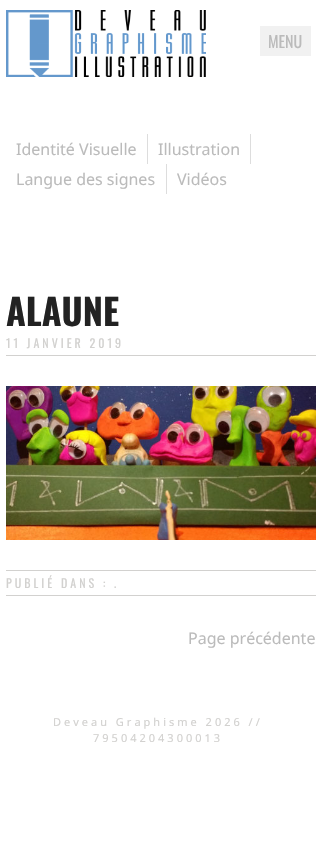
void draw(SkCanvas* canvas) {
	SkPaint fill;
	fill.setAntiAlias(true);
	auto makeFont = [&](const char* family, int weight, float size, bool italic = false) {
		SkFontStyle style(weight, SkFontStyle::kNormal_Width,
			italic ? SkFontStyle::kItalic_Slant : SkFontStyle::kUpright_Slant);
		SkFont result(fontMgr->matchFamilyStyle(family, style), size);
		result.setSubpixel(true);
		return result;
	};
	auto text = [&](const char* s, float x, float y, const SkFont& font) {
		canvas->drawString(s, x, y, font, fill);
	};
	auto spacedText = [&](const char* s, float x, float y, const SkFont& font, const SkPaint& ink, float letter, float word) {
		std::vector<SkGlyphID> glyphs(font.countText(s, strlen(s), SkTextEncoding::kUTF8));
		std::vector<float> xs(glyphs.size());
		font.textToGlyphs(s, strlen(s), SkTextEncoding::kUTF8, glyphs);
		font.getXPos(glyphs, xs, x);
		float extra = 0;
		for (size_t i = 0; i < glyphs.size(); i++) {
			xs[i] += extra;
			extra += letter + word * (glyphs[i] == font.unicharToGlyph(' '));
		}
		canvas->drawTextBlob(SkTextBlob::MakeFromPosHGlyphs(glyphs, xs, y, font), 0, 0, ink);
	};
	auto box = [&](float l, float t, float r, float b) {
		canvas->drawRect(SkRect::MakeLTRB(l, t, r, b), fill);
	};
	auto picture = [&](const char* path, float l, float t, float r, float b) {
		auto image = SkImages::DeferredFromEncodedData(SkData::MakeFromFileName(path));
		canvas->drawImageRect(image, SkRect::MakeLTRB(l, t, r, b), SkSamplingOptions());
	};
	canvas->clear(0xFFFFFFFF);
	picture("image0.png", 6, 10, 206, 77);
	fill.setColor(0xFFF1F1F1);
	box(260, 26, 311, 56);
	fill.setColor(0xFFDDDDDD);
	box(147, 134, 148, 164);
	box(250, 134, 251, 164);
	box(166, 164, 167, 194);
	fill.setColor(0xFFD2D1CF);
	box(6, 355, 316, 356);
	picture("image1.png", 6, 386, 316, 540);
	box(6, 570, 316, 571);
	box(6, 595, 316, 596);
	auto font1 = makeFont("Oswald", 400, 16);
	fill.setColor(0xFFBBBBBB);
	text("MENU", 268, 48, font1);
	auto font2 = makeFont("Noto Sans", 400, 16);
	text("Identité Visuelle", 16, 155, font2);
	text("Illustration", 158, 155, font2);
	text("Langue des signes", 16, 185, font2);
	text("Vidéos", 177, 185, font2);
	auto font3 = makeFont("Oswald", 700, 36);
	fill.setColor(0xFF222222);
	text("ALAUNE", 6, 326, font3);
	auto font4 = makeFont("Oswald", 400, 12);
	fill.setColor(0xFFD2D1CF);
	spacedText("11 JANVIER 2019", 6, 348, font4, fill, 3, 0);
	spacedText("PUBLIÉ DANS : .", 6, 588, font4, fill, 3, 0);
	fill.setColor(0xFFBBBBBB);
	text("Page précédente", 188, 644, font2);
	auto font5 = makeFont("Noto Sans", 400, 11);
	fill.setColor(0xFFD2D1CF);
	spacedText("Deveau Graphisme 2026 //", 53, 726, font5, fill, 3, 0);
	spacedText("79504204300013", 93, 742, font5, fill, 3, 0);
}
